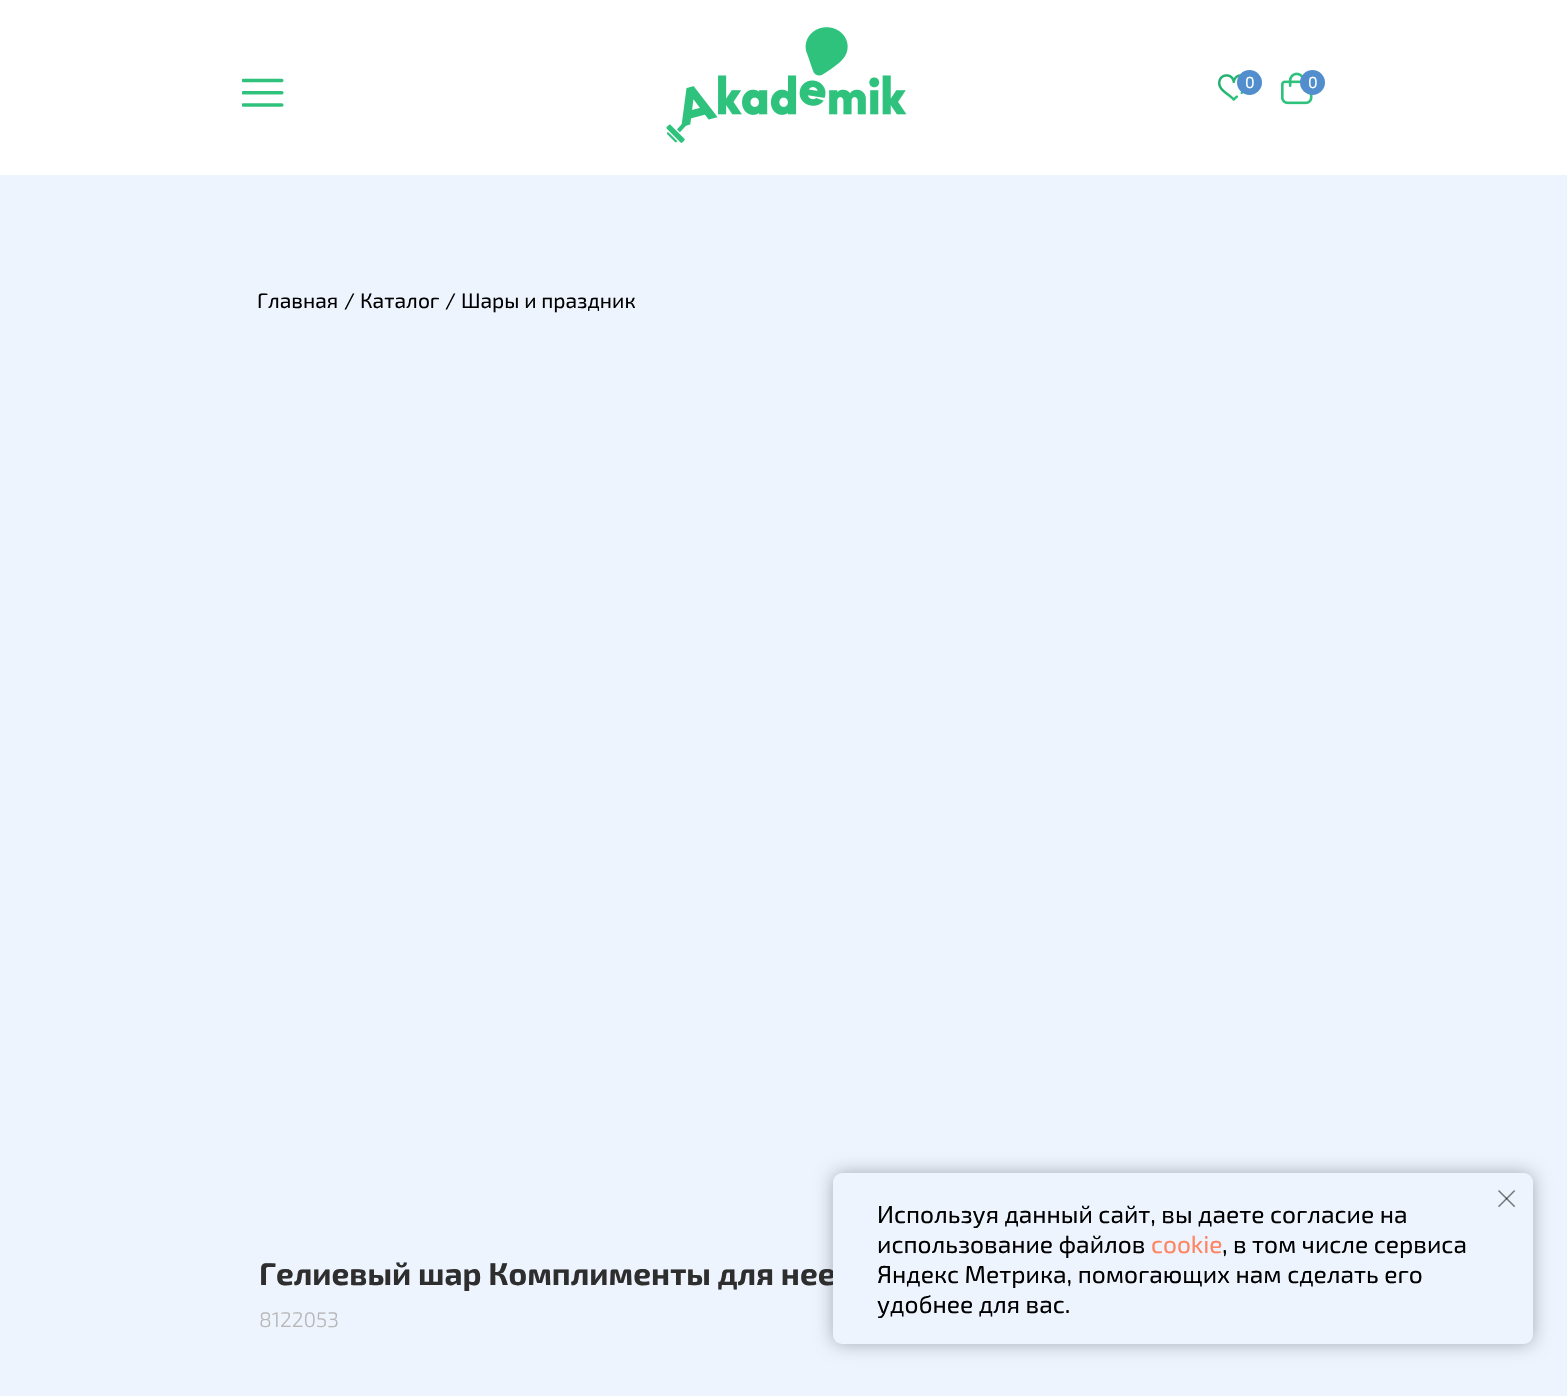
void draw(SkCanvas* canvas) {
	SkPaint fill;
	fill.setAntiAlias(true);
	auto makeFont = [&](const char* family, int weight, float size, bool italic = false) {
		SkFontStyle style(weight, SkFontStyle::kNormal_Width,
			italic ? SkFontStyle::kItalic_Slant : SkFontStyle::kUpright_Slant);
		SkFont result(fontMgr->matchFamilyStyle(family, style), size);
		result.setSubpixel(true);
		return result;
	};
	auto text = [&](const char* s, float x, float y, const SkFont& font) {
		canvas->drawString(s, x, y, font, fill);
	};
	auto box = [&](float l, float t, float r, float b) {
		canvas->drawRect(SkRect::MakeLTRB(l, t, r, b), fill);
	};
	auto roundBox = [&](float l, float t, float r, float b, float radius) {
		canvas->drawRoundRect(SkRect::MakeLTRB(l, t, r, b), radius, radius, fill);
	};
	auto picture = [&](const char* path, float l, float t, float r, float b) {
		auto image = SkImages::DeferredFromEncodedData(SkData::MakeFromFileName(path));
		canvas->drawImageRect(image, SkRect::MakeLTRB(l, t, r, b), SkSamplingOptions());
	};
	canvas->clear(0xFFEDF4FE);
	fill.setColor(0xFFFFFFFF);
	box(0, 0, 1567, 175);
	picture("image0.png", 666, 27, 907, 143);
	picture("image1.png", 1218, 74, 1244, 101);
	fill.setColor(0xFF528ECE);
	canvas->drawCircle(1249.5f, 82.5f, 12.5f, fill);
	picture("image2.png", 1281, 72, 1313, 105);
	canvas->drawCircle(1312.5f, 82.5f, 12.5f, fill);
	picture("image3.png", 242, 78, 284, 107);
	fill.setColor(0x4D000000);
	fill.setMaskFilter(SkMaskFilter::MakeBlur(kNormal_SkBlurStyle, 9));
	canvas->drawRoundRect(SkRect::MakeLTRB(833, 1173, 1533, 1344), 9, 9, fill);
	fill.setMaskFilter(nullptr);
	auto font1 = makeFont("Exo 2", 400, 16);
	fill.setColor(0xFFFFFFFF);
	text("0", 1245, 88, font1);
	text("0", 1308, 88, font1);
	auto font2 = makeFont("Exo 2", 400, 21);
	fill.setColor(0xFF000000);
	text("Главная", 257, 308, font2);
	text("/", 344, 308, font2);
	text("Каталог", 360, 308, font2);
	text("/", 445, 308, font2);
	text("Шары и праздник", 461, 308, font2);
	auto font3 = makeFont("Exo 2", 700, 31.5f);
	fill.setColor(0xFF2E2E2E);
	text("Гелиевый шар Комплименты для нее", 259, 1285, font3);
	auto font4 = makeFont("Exo 2", 300, 21);
	fill.setColor(0xFFB7B7B7);
	text("8122053", 259, 1327, font4);
	fill.setColor(0xFFEDF4FE);
	roundBox(833, 1173, 1533, 1344, 9);
	picture("image4.png", 1498, 1190, 1516, 1208);
	auto font5 = makeFont("Exo 2", 400, 24.5f);
	fill.setColor(0xFF000000);
	text("Используя данный сайт, вы даете согласие на", 877, 1223, font5);
	text("использование файлов", 877, 1253, font5);
	fill.setColor(0xFFFF8562);
	text("cookie", 1151, 1253, font5);
	fill.setColor(0xFF000000);
	text(", в том числе сервиса", 1222, 1253, font5);
	text("Яндекс Метрика, помогающих нам сделать его", 877, 1283, font5);
	text("удобнее для вас.", 877, 1313, font5);
}
